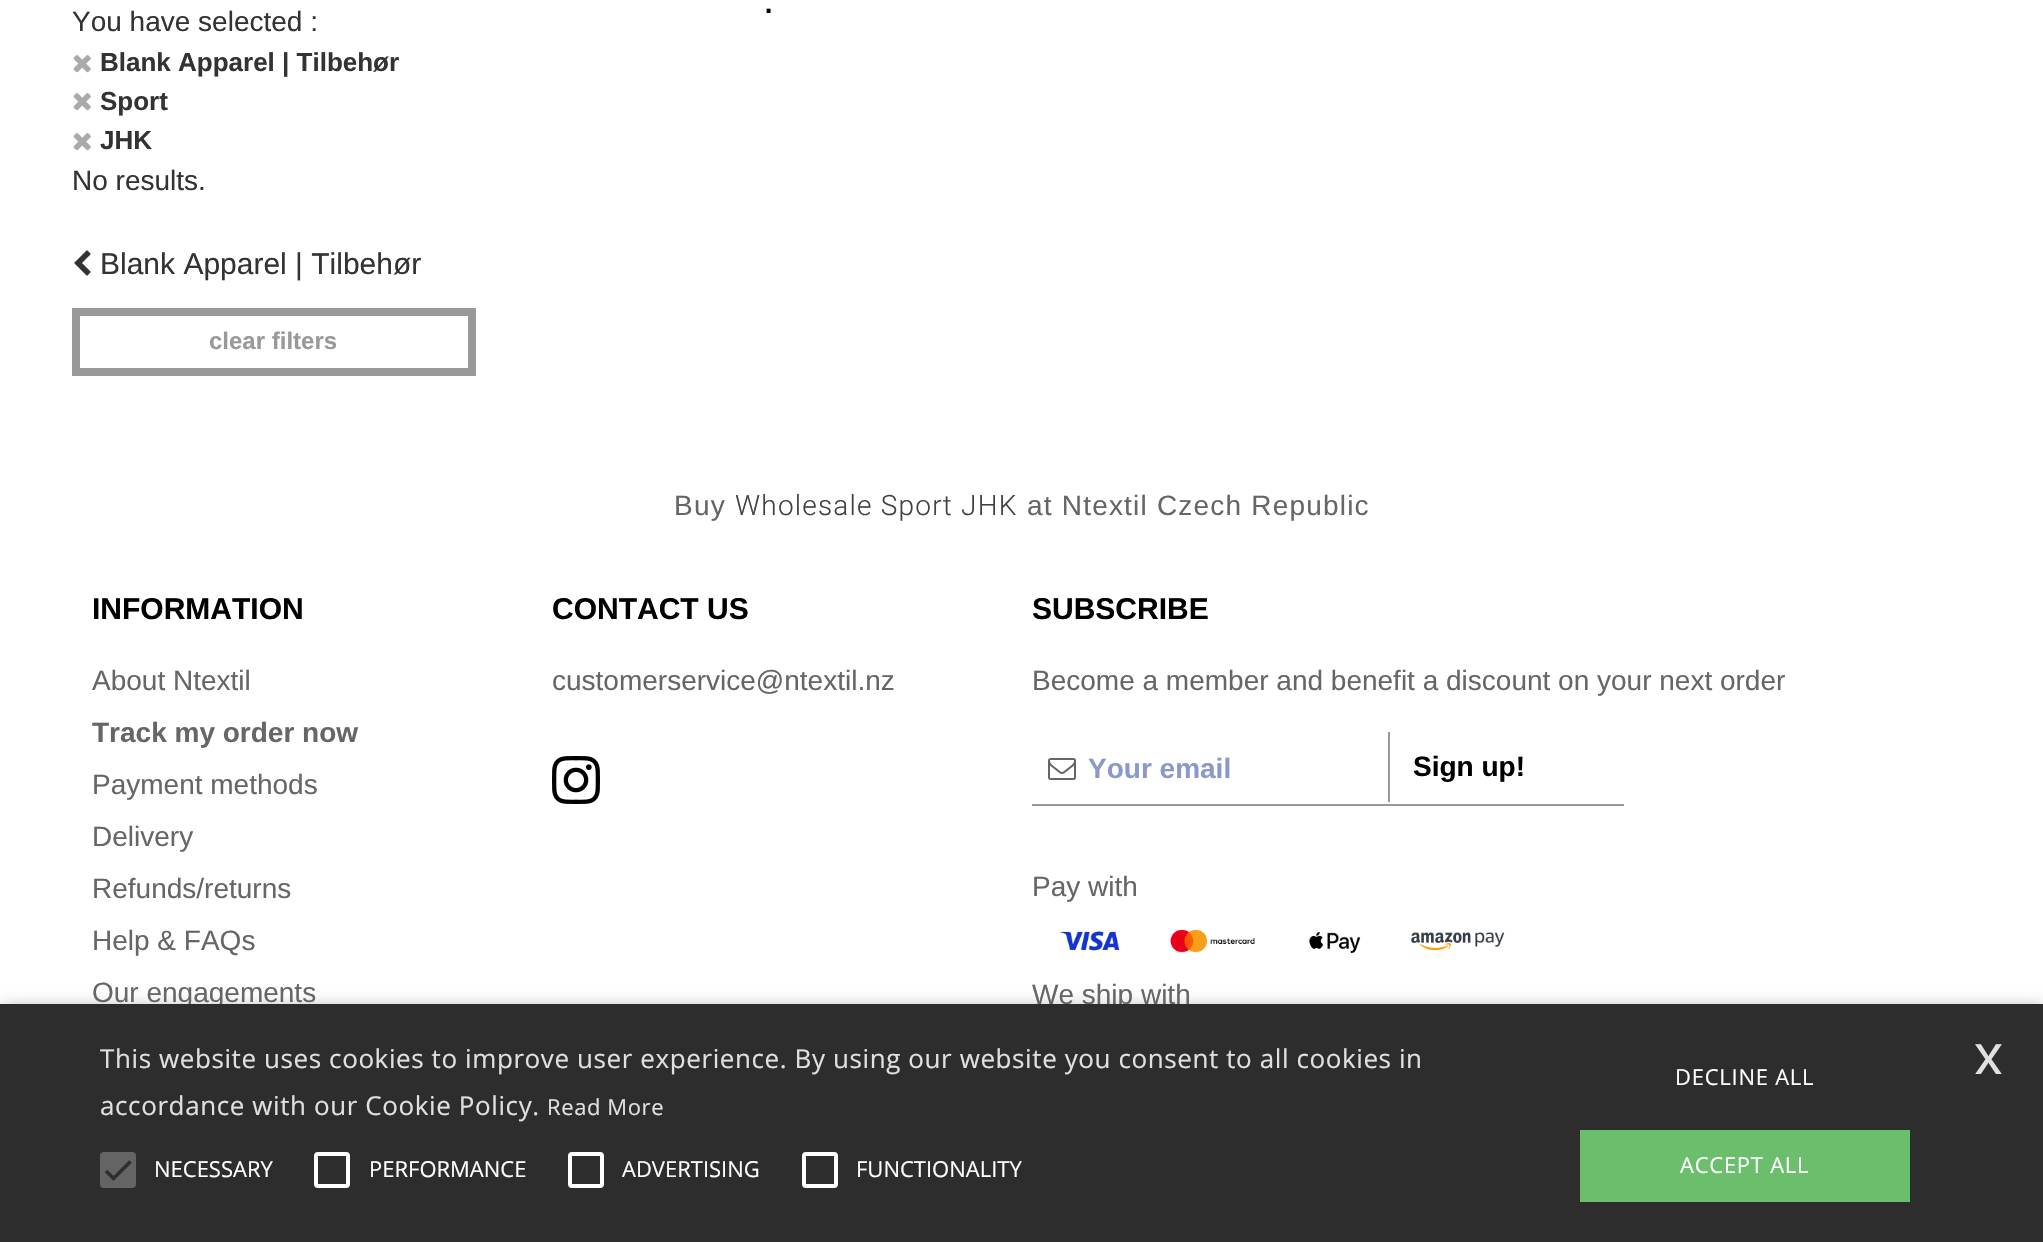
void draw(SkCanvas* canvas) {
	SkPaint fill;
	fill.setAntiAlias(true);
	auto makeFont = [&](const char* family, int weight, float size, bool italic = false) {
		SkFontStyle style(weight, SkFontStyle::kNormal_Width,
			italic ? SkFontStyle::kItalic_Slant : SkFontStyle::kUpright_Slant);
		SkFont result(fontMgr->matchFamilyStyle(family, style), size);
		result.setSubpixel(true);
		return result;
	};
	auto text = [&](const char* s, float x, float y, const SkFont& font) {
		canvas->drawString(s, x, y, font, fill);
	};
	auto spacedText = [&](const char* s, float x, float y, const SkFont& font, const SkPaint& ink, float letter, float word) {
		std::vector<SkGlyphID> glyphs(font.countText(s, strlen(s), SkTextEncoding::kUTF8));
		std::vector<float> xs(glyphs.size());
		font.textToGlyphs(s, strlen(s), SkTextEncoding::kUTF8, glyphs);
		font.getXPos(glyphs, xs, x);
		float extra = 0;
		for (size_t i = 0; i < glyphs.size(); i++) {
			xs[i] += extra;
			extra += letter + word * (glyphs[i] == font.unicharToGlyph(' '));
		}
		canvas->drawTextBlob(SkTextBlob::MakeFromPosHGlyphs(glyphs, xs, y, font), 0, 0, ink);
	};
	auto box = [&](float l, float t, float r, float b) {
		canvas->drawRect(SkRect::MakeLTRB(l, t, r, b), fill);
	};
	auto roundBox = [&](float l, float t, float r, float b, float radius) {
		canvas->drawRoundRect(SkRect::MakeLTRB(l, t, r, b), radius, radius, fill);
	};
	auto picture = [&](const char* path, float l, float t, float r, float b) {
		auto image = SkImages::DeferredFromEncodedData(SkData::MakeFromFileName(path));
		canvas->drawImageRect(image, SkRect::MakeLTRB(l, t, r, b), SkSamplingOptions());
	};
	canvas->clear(0xFFFFFFFF);
	picture("image0.png", 73, 55, 91, 73);
	picture("image0.png", 73, 93, 91, 111);
	picture("image0.png", 73, 133, 91, 151);
	picture("image1.png", 74, 250, 91, 276);
	fill.setStyle(SkPaint::kStroke_Style);
	fill.setStrokeWidth(8);
	fill.setColor(0xFF999999);
	canvas->drawRect(SkRect::MakeLTRB(76, 312, 472, 372), fill);
	picture("image2.png", 552, 756, 600, 804);
	fill.setStyle(SkPaint::kFill_Style);
	box(1032, 804, 1624, 806);
	picture("image3.png", 1048, 758, 1076, 780);
	box(1388, 732, 1390, 802);
	picture("image4.png", 1060, 931, 1120, 951);
	picture("image5.png", 1170, 929, 1255, 953);
	picture("image6.png", 1309, 932, 1361, 953);
	picture("image7.png", 1411, 932, 1505, 950);
	fill.setColor(0x59000000);
	fill.setMaskFilter(SkMaskFilter::MakeBlur(kNormal_SkBlurStyle, 8));
	canvas->drawRect(SkRect::MakeLTRB(2, 1008, 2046, 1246), fill);
	fill.setMaskFilter(nullptr);
	auto font1 = makeFont("Liberation Sans", 400, 28);
	fill.setColor(0xFF333333);
	text("You have selected :", 72, 31, font1);
	auto font2 = makeFont("Liberation Sans", 700, 26);
	text("Blank Apparel | Tilbehør", 100, 71, font2);
	text("Sport", 100, 110, font2);
	text("JHK", 100, 149, font2);
	text("No results.", 72, 190, font1);
	auto font3 = makeFont("Liberation Sans", 400, 30);
	text("Blank Apparel | Tilbehør", 100, 274, font3);
	auto font4 = makeFont("Liberation Sans", 700, 24);
	fill.setColor(0xFF999999);
	text("clear filters", 209, 349, font4);
	auto font5 = makeFont("Liberation Sans", 400, 40);
	fill.setColor(0xFF000000);
	spacedText(".", 763, 13, font5, fill, 1.2f, 0);
	fill.setColor(0xFF666666);
	spacedText("Buy", 674, 515, font1, fill, 1.2f, 0);
	auto font6 = makeFont("Roboto", 300, 28);
	fill.setColor(0xFF414141);
	spacedText("Wholesale Sport JHK", 735, 515, font6, fill, 1.2f, 0);
	fill.setColor(0xFF666666);
	spacedText("at Ntextil Czech Republic", 1027, 515, font1, fill, 1.2f, 0);
	auto font7 = makeFont("Liberation Sans", 700, 30);
	fill.setColor(0xFF000000);
	text("INFORMATION", 92, 619, font7);
	fill.setColor(0xFF666666);
	text("About Ntextil", 92, 690, font1);
	auto font8 = makeFont("Liberation Sans", 700, 28);
	text("Track my order now", 92, 742, font8);
	text("Payment methods", 92, 794, font1);
	text("Delivery", 92, 846, font1);
	text("Refunds/returns", 92, 898, font1);
	text("Help & FAQs", 92, 950, font1);
	text("Our engagements", 92, 1002, font1);
	fill.setColor(0xFF000000);
	text("CONTACT US", 552, 619, font7);
	fill.setColor(0xFF666666);
	text("customerservice@ntextil.nz", 552, 690, font1);
	fill.setColor(0xFF000000);
	text("SUBSCRIBE", 1032, 619, font7);
	fill.setColor(0xFF666666);
	text("Become a member and benefit a discount on your next order", 1032, 690, font1);
	fill.setColor(0xFF8A99C9);
	text("Your email", 1088, 778, font8);
	fill.setColor(0xFF000000);
	text("Sign up!", 1413, 776, font8);
	fill.setColor(0xFF666666);
	text("Pay with", 1032, 896, font1);
	text("We ship with", 1032, 1004, font1);
	fill.setColor(0xFF2D2D2D);
	box(0, 1004, 2043, 1242);
	auto font9 = makeFont("Open Sans", 400, 26);
	fill.setColor(0xFFE0E0E0);
	spacedText("This website uses cookies to improve user experience. By using our website you consent to all cookies in", 100, 1068, font9, fill, 0.6f, 0);
	spacedText("accordance with our Cookie Policy.", 100, 1115, font9, fill, 0.6f, 0);
	auto font10 = makeFont("Open Sans", 400, 22);
	spacedText("Read More", 547, 1115, font10, fill, 0.6f, 0);
	fill.setColor(0xFF646464);
	roundBox(100, 1152, 136, 1188, 4);
	fill.setStyle(SkPaint::kStroke_Style);
	fill.setStrokeWidth(3.6f);
	fill.setColor(0xFF2D2D2D);
	canvas->drawPath(SkPathBuilder().moveTo(106, 1171).lineTo(113.5f, 1178.5f).lineTo(130.5f, 1161.5f).detach(), fill);
	fill.setStyle(SkPaint::kFill_Style);
	fill.setColor(0xFFFFFFFF);
	text("NECESSARY", 154, 1177, font10);
	fill.setStyle(SkPaint::kStroke_Style);
	fill.setStrokeWidth(4);
	canvas->drawRoundRect(SkRect::MakeLTRB(316, 1154, 348, 1186), 2, 2, fill);
	fill.setStyle(SkPaint::kFill_Style);
	text("PERFORMANCE", 369, 1177, font10);
	fill.setStyle(SkPaint::kStroke_Style);
	canvas->drawRoundRect(SkRect::MakeLTRB(570, 1154, 602, 1186), 2, 2, fill);
	fill.setStyle(SkPaint::kFill_Style);
	text("ADVERTISING", 622, 1177, font10);
	fill.setStyle(SkPaint::kStroke_Style);
	canvas->drawRoundRect(SkRect::MakeLTRB(804, 1154, 836, 1186), 2, 2, fill);
	fill.setStyle(SkPaint::kFill_Style);
	text("FUNCTIONALITY", 856, 1177, font10);
	spacedText("DECLINE ALL", 1675, 1085, font10, fill, 0.75f, 0);
	fill.setColor(0xFF6BBE6B);
	box(1580, 1130, 1910, 1202);
	fill.setColor(0xFFFFFFFF);
	spacedText("ACCEPT ALL", 1680, 1173, font10, fill, 0.75f, 0);
	canvas->save();
	canvas->clipRect(SkRect::MakeLTRB(1974, 1044, 2004, 1074));
	auto font11 = makeFont("Liberation Sans", 400, 58);
	fill.setColor(0xFFE0E0E0);
	text("x", 1974, 1075, font11);
	canvas->restore();
}
